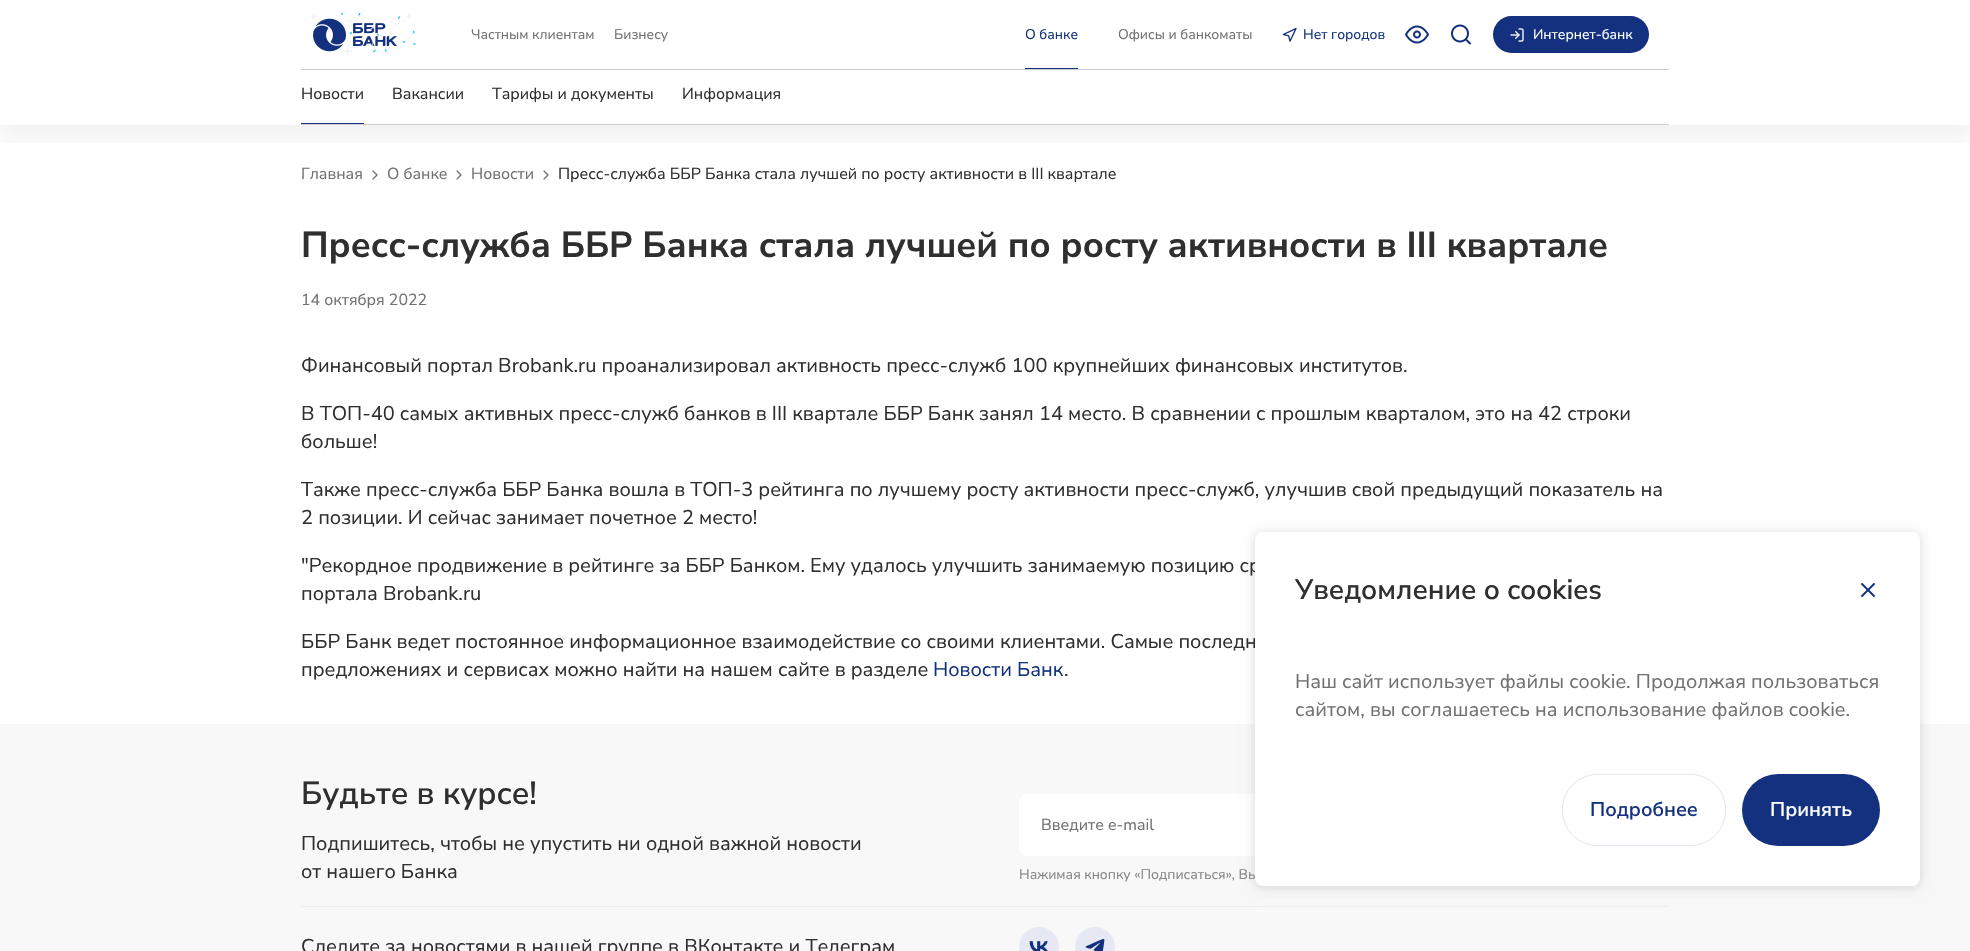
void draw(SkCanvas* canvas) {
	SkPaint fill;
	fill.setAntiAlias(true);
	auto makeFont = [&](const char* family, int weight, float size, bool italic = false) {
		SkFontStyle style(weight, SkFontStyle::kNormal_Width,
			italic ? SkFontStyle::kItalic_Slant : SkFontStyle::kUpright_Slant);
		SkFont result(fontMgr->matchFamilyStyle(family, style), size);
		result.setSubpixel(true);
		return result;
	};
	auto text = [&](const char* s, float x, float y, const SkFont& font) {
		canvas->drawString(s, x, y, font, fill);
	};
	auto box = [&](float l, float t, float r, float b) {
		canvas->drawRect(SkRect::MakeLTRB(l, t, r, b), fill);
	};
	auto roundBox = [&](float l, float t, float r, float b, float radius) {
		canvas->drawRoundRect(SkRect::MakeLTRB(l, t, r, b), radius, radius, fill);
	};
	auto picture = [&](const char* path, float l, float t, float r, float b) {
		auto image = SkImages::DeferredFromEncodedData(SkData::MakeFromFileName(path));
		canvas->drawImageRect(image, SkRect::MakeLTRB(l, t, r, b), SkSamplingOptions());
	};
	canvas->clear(0xFFFFFFFF);
	picture("image5.png", 372, 170, 378, 180);
	picture("image5.png", 456, 170, 462, 180);
	picture("image5.png", 543, 170, 549, 180);
	canvas->save();
	canvas->clipRect(SkRect::MakeLTRB(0, 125, 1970, 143));
	fill.setColor(0x0D000000);
	fill.setMaskFilter(SkMaskFilter::MakeBlur(kNormal_SkBlurStyle, 10));
	canvas->drawRect(SkRect::MakeLTRB(0, 15, 1970, 140), fill);
	fill.setMaskFilter(nullptr);
	canvas->restore();
	fill.setColor(0xFFCECECE);
	box(301, 69, 1669, 70);
	picture("image0.png", 307, 11, 416, 57);
	fill.setColor(0xFF13317E);
	box(1025, 68, 1078, 69);
	picture("image1.png", 1282, 27, 1297, 42);
	picture("image2.png", 1405, 25, 1429, 44);
	picture("image3.png", 1451, 24, 1471, 45);
	roundBox(1493, 16, 1649, 53, 18.5f);
	picture("image4.png", 1510, 28, 1524, 42);
	fill.setColor(0xFFCECECE);
	box(301, 124, 1669, 125);
	fill.setColor(0xFF13317E);
	box(301, 123, 364, 124);
	fill.setColor(0xFFF8F8F8);
	box(0, 724, 1970, 951);
	fill.setColor(0xFFFFFFFF);
	roundBox(1019, 794, 1518, 856, 8);
	fill.setColor(0xFFEEEEEE);
	box(301, 906, 1669, 907);
	picture("image6.png", 1019, 927, 1059, 951);
	picture("image7.png", 1075, 927, 1115, 951);
	fill.setColor(0x0D000000);
	fill.setMaskFilter(SkMaskFilter::MakeBlur(kNormal_SkBlurStyle, 7.5f));
	canvas->drawRoundRect(SkRect::MakeLTRB(1255, 534, 1920, 888), 8, 8, fill);
	fill.setMaskFilter(nullptr);
	fill.setColor(0x1A000000);
	fill.setMaskFilter(SkMaskFilter::MakeBlur(kNormal_SkBlurStyle, 5));
	canvas->drawRoundRect(SkRect::MakeLTRB(1255, 533, 1920, 887), 8, 8, fill);
	fill.setMaskFilter(nullptr);
	auto font1 = makeFont("Nunito Sans", 400, 14);
	fill.setColor(0xFF717171);
	text("Частным клиентам", 471, 39, font1);
	text("Бизнесу", 614, 39, font1);
	fill.setColor(0xFF13317E);
	text("О банке", 1025, 39, font1);
	fill.setColor(0xFF717171);
	text("Офисы и банкоматы", 1118, 39, font1);
	fill.setColor(0xFF13317E);
	text("Нет городов", 1303, 39, font1);
	fill.setColor(0xFFFFFFFF);
	text("Интернет-банк", 1533, 39, font1);
	auto font2 = makeFont("Nunito Sans", 400, 16);
	fill.setColor(0xFF2F2F2F);
	text("Новости", 301, 99, font2);
	text("Вакансии", 392, 99, font2);
	text("Тарифы и документы", 492, 99, font2);
	text("Информация", 682, 99, font2);
	fill.setColor(0xFF717171);
	text("Главная", 301, 179, font2);
	text("О банке", 387, 179, font2);
	text("Новости", 471, 179, font2);
	fill.setColor(0xFF2F2F2F);
	text("Пресс-служба ББР Банка стала лучшей по росту активности в III квартале", 558, 179, font2);
	auto font3 = makeFont("Nunito Sans", 700, 36);
	text("Пресс-служба ББР Банка стала лучшей по росту активности в III квартале", 301, 257, font3);
	fill.setColor(0xFF717171);
	text("14 октября 2022", 301, 305, font2);
	auto font4 = makeFont("Nunito Sans", 400, 20);
	fill.setColor(0xFF2F2F2F);
	text("Финансовый портал Brobank.ru проанализировал активность пресс-служб 100 крупнейших финансовых институтов.", 301, 372, font4);
	text("В ТОП-40 самых активных пресс-служб банков в III квартале ББР Банк занял 14 место. В сравнении с прошлым кварталом, это на 42 строки", 301, 420, font4);
	text("больше!", 301, 448, font4);
	text("Также пресс-служба ББР Банка вошла в ТОП-3 рейтинга по лучшему росту активности пресс-служб, улучшив свой предыдущий показатель на", 301, 496, font4);
	text("2 позиции. И сейчас занимает почетное 2 место!", 301, 524, font4);
	text("\"Рекордное продвижение в рейтинге за ББР Банком. Ему удалось улучшить занимаемую позицию ср", 301, 572, font4);
	text("портала Brobank.ru", 301, 600, font4);
	text("ББР Банк ведет постоянное информационное взаимодействие со своими клиентами. Самые последн", 301, 648, font4);
	text("предложениях и сервисах можно найти на нашем сайте в разделе", 301, 676, font4);
	fill.setColor(0xFF13317E);
	text("Новости Банк", 933, 676, font4);
	fill.setColor(0xFF2F2F2F);
	text(".", 1064, 676, font4);
	auto font5 = makeFont("Nunito Sans", 600, 32);
	text("Будьте в курсе!", 301, 804, font5);
	text("Подпишитесь, чтобы не упустить ни одной важной новости", 301, 850, font4);
	text("от нашего Банка", 301, 878, font4);
	fill.setColor(0xFF717171);
	text("Введите e-mail", 1041, 830, font2);
	fill.setColor(0xFF868686);
	text("Нажимая кнопку «Подписаться», Вы", 1019, 879, font1);
	fill.setColor(0xFF2F2F2F);
	text("Следите за новостями в нашей группе в ВКонтакте и Телеграм", 301, 953, font4);
	fill.setColor(0xFFFFFFFF);
	roundBox(1255, 532, 1920, 886, 8);
	auto font6 = makeFont("Nunito Sans", 600, 28);
	fill.setColor(0xFF2F2F2F);
	text("Уведомление о cookies", 1295, 599, font6);
	picture("image8.png", 1861, 583, 1875, 597);
	fill.setColor(0xFF717171);
	text("Наш сайт использует файлы cookie. Продолжая пользоваться", 1295, 688, font4);
	text("сайтом, вы соглашаетесь на использование файлов cookie.", 1295, 716, font4);
	fill.setStyle(SkPaint::kStroke_Style);
	fill.setStrokeWidth(0.5f);
	fill.setColor(0xFFC0C7E2);
	canvas->drawRoundRect(SkRect::MakeLTRB(1562.25f, 774.25f, 1725.75f, 845.75f), 35.75f, 35.75f, fill);
	auto font7 = makeFont("Nunito Sans", 600, 20);
	fill.setStyle(SkPaint::kFill_Style);
	fill.setColor(0xFF13317E);
	text("Подробнее", 1590, 816, font7);
	roundBox(1742, 774, 1880, 846, 36);
	fill.setColor(0xFFFFFFFF);
	text("Принять", 1770, 816, font7);
}
